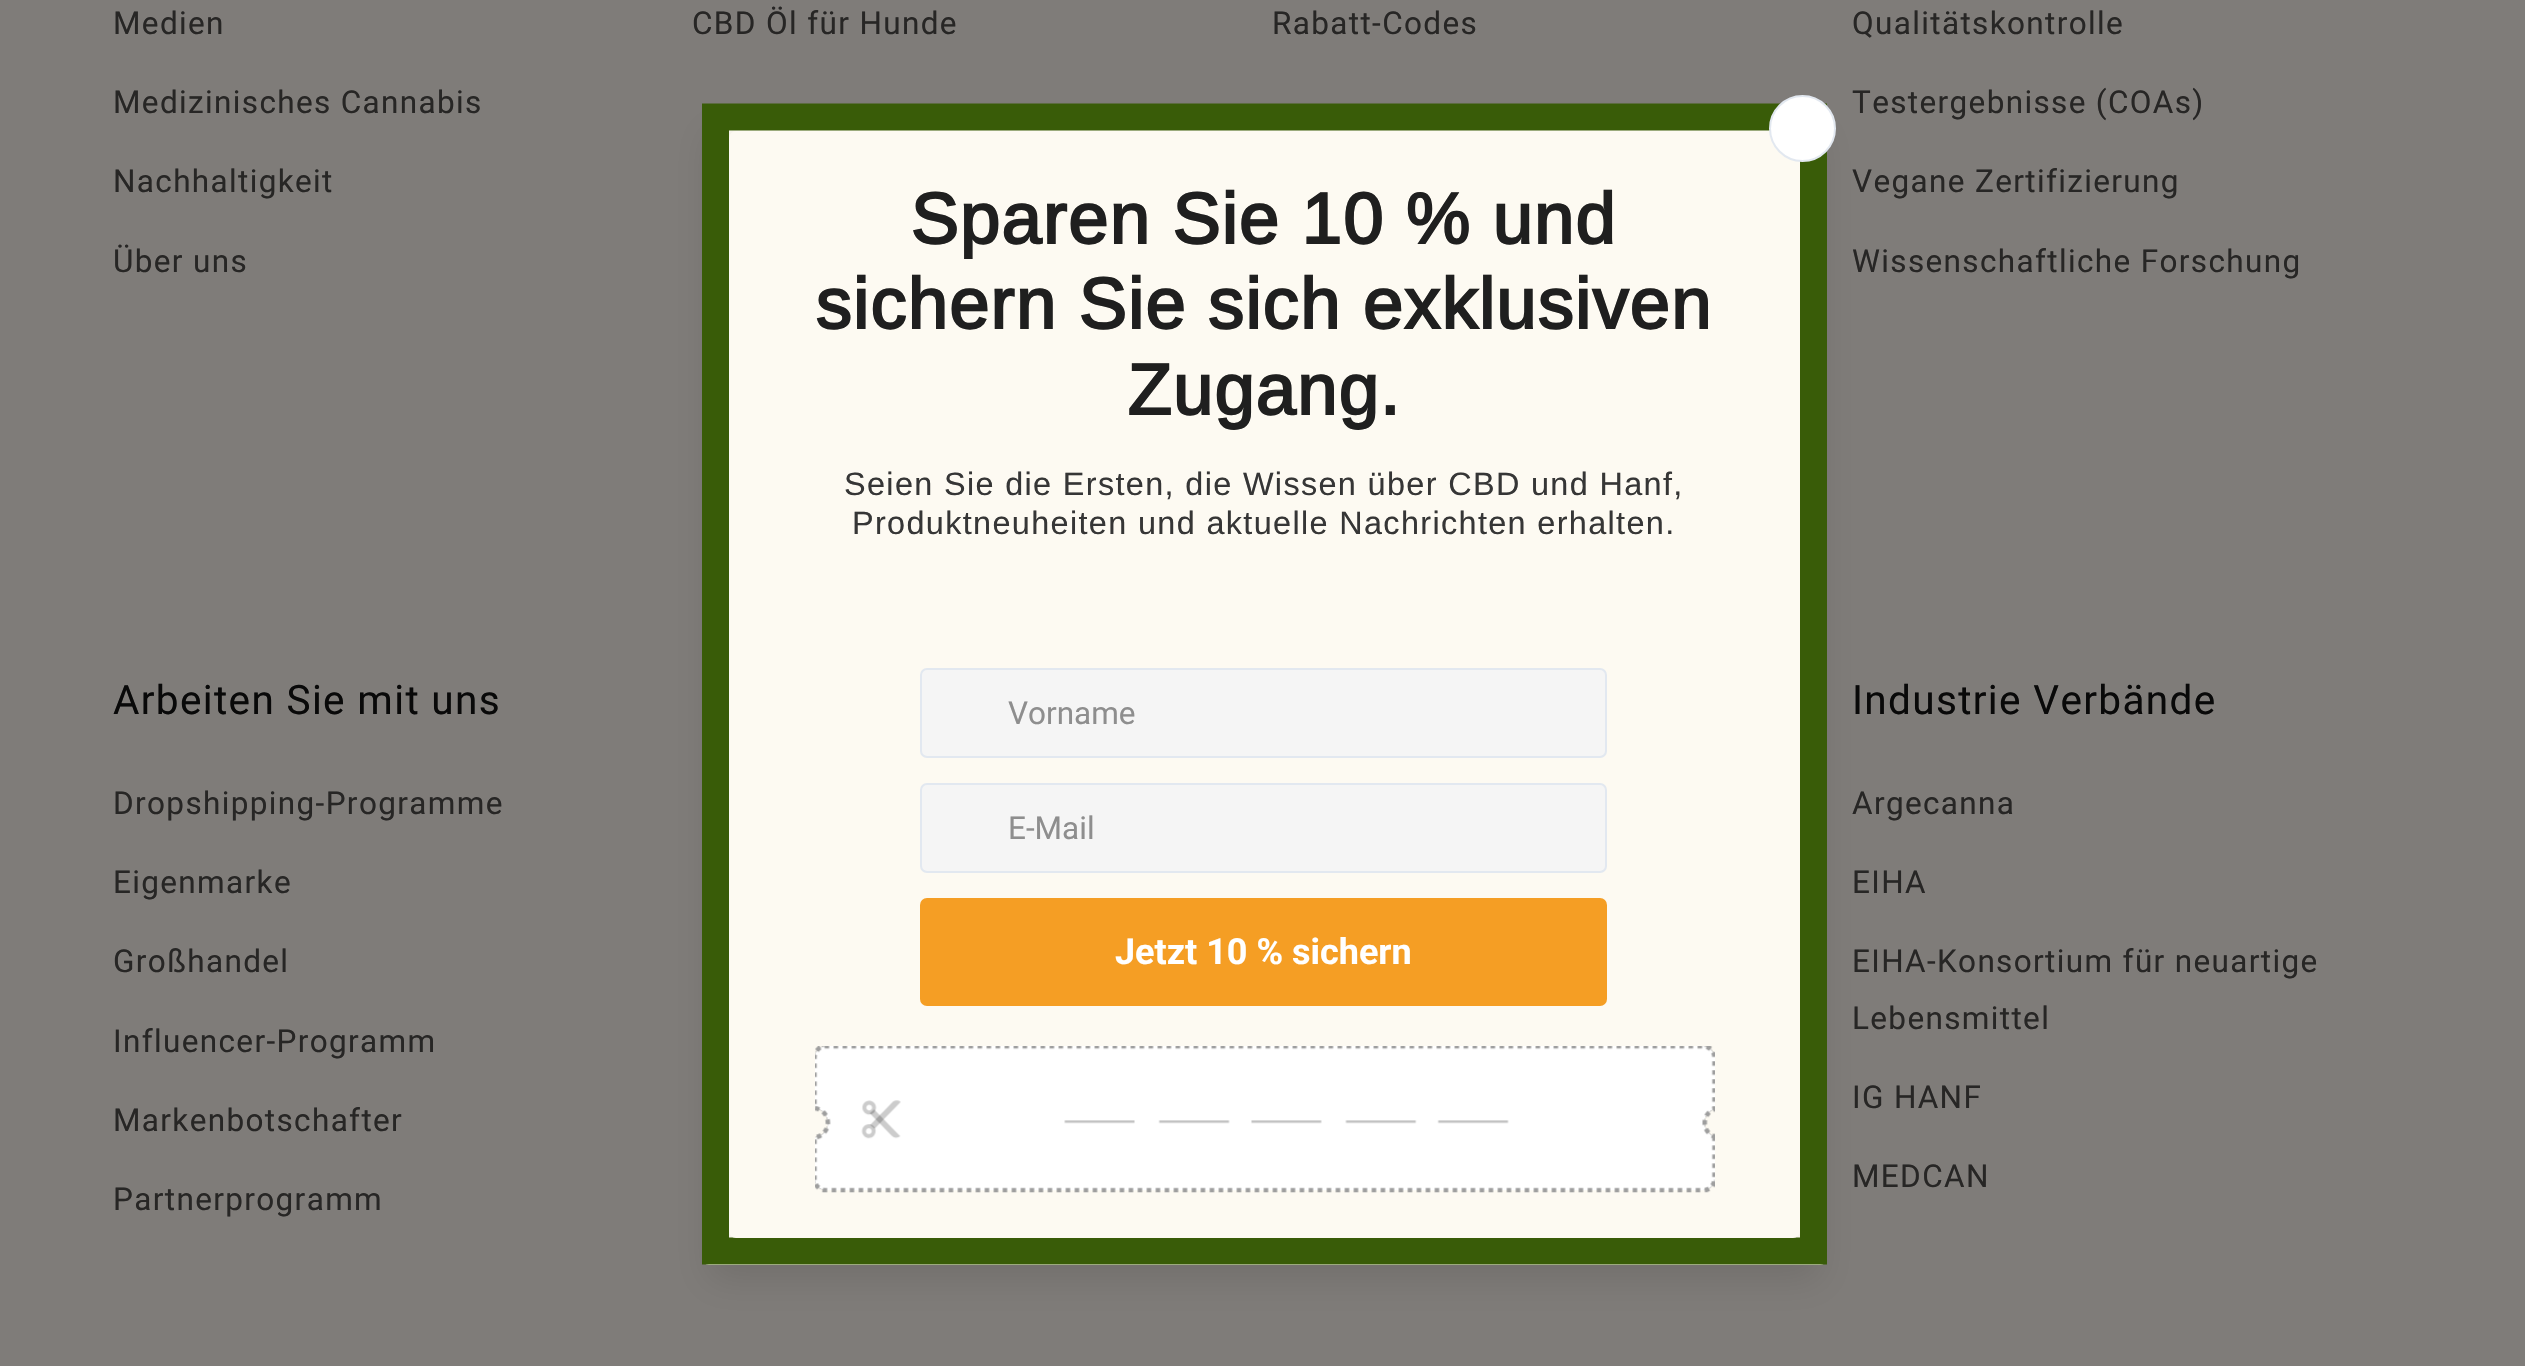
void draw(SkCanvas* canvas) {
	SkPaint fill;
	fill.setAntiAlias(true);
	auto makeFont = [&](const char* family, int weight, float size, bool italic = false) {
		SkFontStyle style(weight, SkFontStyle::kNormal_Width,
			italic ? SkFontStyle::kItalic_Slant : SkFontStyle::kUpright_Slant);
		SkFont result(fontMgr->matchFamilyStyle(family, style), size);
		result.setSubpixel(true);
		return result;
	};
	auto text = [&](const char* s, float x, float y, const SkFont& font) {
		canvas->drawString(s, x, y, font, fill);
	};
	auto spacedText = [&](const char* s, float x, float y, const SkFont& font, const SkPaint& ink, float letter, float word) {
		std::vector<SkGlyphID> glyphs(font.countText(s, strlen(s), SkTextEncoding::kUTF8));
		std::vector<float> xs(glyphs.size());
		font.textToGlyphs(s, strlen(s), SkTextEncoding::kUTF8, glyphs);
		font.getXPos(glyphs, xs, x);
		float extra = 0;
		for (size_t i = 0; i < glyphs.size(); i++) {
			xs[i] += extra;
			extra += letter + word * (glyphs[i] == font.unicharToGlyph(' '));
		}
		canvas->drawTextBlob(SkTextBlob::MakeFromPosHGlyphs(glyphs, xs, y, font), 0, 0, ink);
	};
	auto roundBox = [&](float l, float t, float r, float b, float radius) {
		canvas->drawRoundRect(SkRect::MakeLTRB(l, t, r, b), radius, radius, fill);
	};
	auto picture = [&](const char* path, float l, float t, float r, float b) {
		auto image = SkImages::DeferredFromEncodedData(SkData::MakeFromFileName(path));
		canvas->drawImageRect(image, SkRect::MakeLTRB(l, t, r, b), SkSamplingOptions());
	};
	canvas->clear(0xFF7F7C79);
	fill.setColor(0x1A000000);
	fill.setMaskFilter(SkMaskFilter::MakeBlur(kNormal_SkBlurStyle, 17));
	canvas->drawRect(SkRect::MakeLTRB(709, 133, 1820, 1280), fill);
	fill.setMaskFilter(nullptr);
	fill.setColor(0xFFFDFAF2);
	roundBox(702, 104, 1827, 1265, 7);
	fill.setStyle(SkPaint::kStroke_Style);
	fill.setStrokeWidth(27);
	fill.setColor(0xFF395C08);
	canvas->drawPath(SkPathBuilder().moveTo(715.5f, 117).lineTo(1813.5f, 117).lineTo(1813.5f, 1251).lineTo(715.5f, 1251).close().detach(), fill);
	canvas->save();
	canvas->clipRect(SkRect::MakeLTRB(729, 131, 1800, 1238));
	fill.setStyle(SkPaint::kFill_Style);
	fill.setColor(0x1F000000);
	fill.setMaskFilter(SkMaskFilter::MakeBlur(kNormal_SkBlurStyle, 22.5f));
	canvas->drawRect(SkRect::MakeLTRB(736, 137, 1793, 1231), fill);
	fill.setMaskFilter(nullptr);
	canvas->restore();
	fill.setColor(0xFFFDFAF2);
	roundBox(729, 131, 1800, 1238, 7);
	fill.setColor(0xFFFFFFFF);
	canvas->drawCircle(1802.5f, 128.5f, 32.5f, fill);
	fill.setStyle(SkPaint::kStroke_Style);
	fill.setStrokeWidth(2);
	fill.setColor(0xFFE2E8F0);
	canvas->drawCircle(1802.5f, 128.5f, 32.5f, fill);
	fill.setStyle(SkPaint::kFill_Style);
	fill.setColor(0xFFF5F5F5);
	canvas->drawRoundRect(SkRect::MakeLTRB(921, 669, 1606, 757), 6, 6, fill);
	fill.setStyle(SkPaint::kStroke_Style);
	fill.setColor(0xFFE2E8F0);
	canvas->drawRoundRect(SkRect::MakeLTRB(921, 669, 1606, 757), 6, 6, fill);
	fill.setStyle(SkPaint::kFill_Style);
	fill.setColor(0xFFF5F5F5);
	canvas->drawRoundRect(SkRect::MakeLTRB(921, 784, 1606, 872), 6, 6, fill);
	fill.setStyle(SkPaint::kStroke_Style);
	fill.setColor(0xFFE2E8F0);
	canvas->drawRoundRect(SkRect::MakeLTRB(921, 784, 1606, 872), 6, 6, fill);
	fill.setStyle(SkPaint::kFill_Style);
	fill.setColor(0xFFF59E24);
	roundBox(920, 898, 1607, 1006, 7);
	picture("image0.png", 815, 1046, 1715, 1193);
	auto font1 = makeFont("Roboto", 400, 31.5f);
	fill.setColor(0xFF272625);
	spacedText("Medien", 113, 34, font1, fill, 1.35f, 0);
	spacedText("Medizinisches Cannabis", 113, 113, font1, fill, 1.35f, 0);
	spacedText("Nachhaltigkeit", 113, 192, font1, fill, 1.35f, 0);
	spacedText("Über uns", 113, 272, font1, fill, 1.35f, 0);
	spacedText("CBD Öl für Hunde", 692, 34, font1, fill, 1.35f, 0);
	spacedText("Rabatt-Codes", 1272, 34, font1, fill, 1.35f, 0);
	spacedText("Qualitätskontrolle", 1852, 34, font1, fill, 1.35f, 0);
	spacedText("Testergebnisse (COAs)", 1852, 113, font1, fill, 1.35f, 0);
	spacedText("Vegane Zertifizierung", 1852, 192, font1, fill, 1.35f, 0);
	spacedText("Wissenschaftliche Forschung", 1852, 272, font1, fill, 1.35f, 0);
	auto font2 = makeFont("Roboto", 400, 40.5f);
	fill.setColor(0xFF090909);
	spacedText("Arbeiten Sie mit uns", 113, 714, font2, fill, 1.35f, 0);
	fill.setColor(0xFF272625);
	spacedText("Dropshipping-Programme", 113, 814, font1, fill, 1.35f, 0);
	spacedText("Eigenmarke", 113, 893, font1, fill, 1.35f, 0);
	spacedText("Großhandel", 113, 972, font1, fill, 1.35f, 0);
	spacedText("Influencer-Programm", 113, 1052, font1, fill, 1.35f, 0);
	spacedText("Markenbotschafter", 113, 1131, font1, fill, 1.35f, 0);
	spacedText("Partnerprogramm", 113, 1210, font1, fill, 1.35f, 0);
	fill.setColor(0xFF090909);
	spacedText("Industrie Verbände", 1852, 714, font2, fill, 1.35f, 0);
	fill.setColor(0xFF272625);
	spacedText("Argecanna", 1852, 814, font1, fill, 1.35f, 0);
	spacedText("EIHA", 1852, 893, font1, fill, 1.35f, 0);
	spacedText("EIHA-Konsortium für neuartige", 1852, 972, font1, fill, 1.35f, 0);
	spacedText("Lebensmittel", 1852, 1029, font1, fill, 1.35f, 0);
	spacedText("IG HANF", 1852, 1108, font1, fill, 1.35f, 0);
	spacedText("MEDCAN", 1852, 1187, font1, fill, 1.35f, 0);
	auto font3 = makeFont("Arimo", 700, 72);
	fill.setColor(0xFF1F1F1F);
	spacedText("Sparen Sie 10 % und", 910, 244, font3, fill, 1.35f, 0);
	spacedText("sichern Sie sich exklusiven", 815, 329, font3, fill, 1.35f, 0);
	spacedText("Zugang.", 1127, 415, font3, fill, 1.35f, 0);
	auto font4 = makeFont("Arimo", 400, 32.4f);
	fill.setColor(0xFF363636);
	spacedText("Seien Sie die Ersten, die Wissen über CBD und Hanf,", 844, 495, font4, fill, 1.35f, 0);
	spacedText("Produktneuheiten und aktuelle Nachrichten erhalten.", 852, 534, font4, fill, 1.35f, 0);
	fill.setColor(0xFF8E8E8E);
	text("Vorname", 1008, 724, font1);
	text("E-Mail", 1008, 839, font1);
	auto font5 = makeFont("Roboto", 700, 36);
	fill.setColor(0xFFFFFFFF);
	text("Jetzt 10 % sichern", 1115, 964, font5);
}
